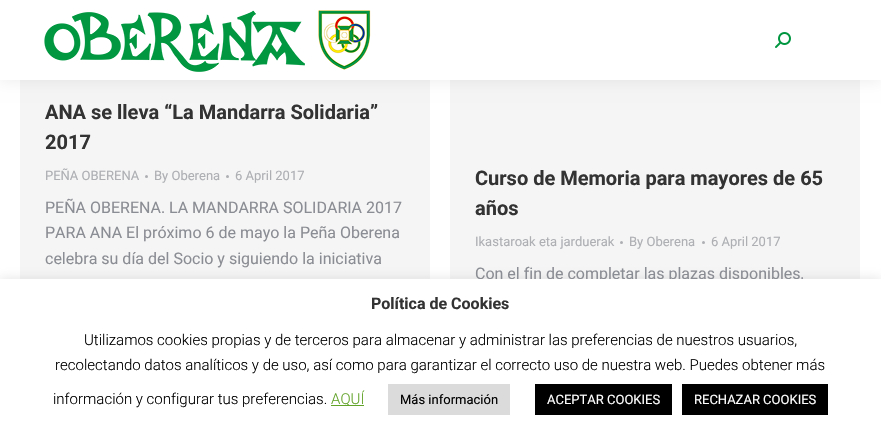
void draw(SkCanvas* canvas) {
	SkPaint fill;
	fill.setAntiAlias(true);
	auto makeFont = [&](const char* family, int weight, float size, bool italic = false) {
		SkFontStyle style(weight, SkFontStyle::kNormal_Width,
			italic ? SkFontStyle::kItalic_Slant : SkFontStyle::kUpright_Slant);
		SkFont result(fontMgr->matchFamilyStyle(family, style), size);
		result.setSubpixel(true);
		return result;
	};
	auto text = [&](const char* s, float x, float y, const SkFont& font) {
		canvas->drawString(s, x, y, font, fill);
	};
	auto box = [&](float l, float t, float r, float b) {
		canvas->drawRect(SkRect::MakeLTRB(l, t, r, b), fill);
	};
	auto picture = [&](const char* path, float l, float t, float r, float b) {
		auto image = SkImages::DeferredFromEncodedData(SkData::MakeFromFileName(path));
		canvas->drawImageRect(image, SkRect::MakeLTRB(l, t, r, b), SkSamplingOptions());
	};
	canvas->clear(0xFFFFFFFF);
	fill.setColor(0xFFF5F5F5);
	box(20, 80, 430, 279);
	box(450, 80, 860, 279);
	fill.setColor(0x12000000);
	fill.setMaskFilter(SkMaskFilter::MakeBlur(kNormal_SkBlurStyle, 7.5f));
	canvas->drawRect(SkRect::MakeLTRB(-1, -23, 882, 81), fill);
	fill.setMaskFilter(nullptr);
	fill.setColor(0xFFFFFFFF);
	box(0, 0, 881, 80);
	picture("image0.png", 44, 10, 371, 72);
	picture("image1.png", 775, 32, 791, 48);
	fill.setColor(0xFFADAFB3);
	canvas->drawCircle(146.5f, 176.5f, 1.5f, fill);
	canvas->drawCircle(227.5f, 176.5f, 1.5f, fill);
	canvas->drawCircle(621.5f, 242.5f, 1.5f, fill);
	canvas->drawCircle(703.5f, 242.5f, 1.5f, fill);
	fill.setColor(0x4DACABAB);
	fill.setMaskFilter(SkMaskFilter::MakeBlur(kNormal_SkBlurStyle, 5));
	canvas->drawRect(SkRect::MakeLTRB(0, 278, 881, 431), fill);
	fill.setMaskFilter(nullptr);
	auto font1 = makeFont("Roboto", 700, 20);
	fill.setColor(0xFF333333);
	text("ANA se lleva “La Mandarra Solidaria”", 45, 119, font1);
	text("2017", 45, 149, font1);
	auto font2 = makeFont("Roboto", 400, 13);
	fill.setColor(0xFFADAFB3);
	text("PEÑA OBERENA", 45, 180, font2);
	text("By Oberena", 154, 180, font2);
	text("6 April 2017", 235, 180, font2);
	auto font3 = makeFont("Roboto", 400, 16);
	fill.setColor(0xFF8B8D94);
	text("PEÑA OBERENA. LA MANDARRA SOLIDARIA 2017", 45, 213, font3);
	text("PARA ANA El próximo 6 de mayo la Peña Oberena", 45, 238, font3);
	text("celebra su día del Socio y siguiendo la iniciativa", 45, 264, font3);
	fill.setColor(0xFF333333);
	text("Curso de Memoria para mayores de 65", 475, 185, font1);
	text("años", 475, 215, font1);
	fill.setColor(0xFFADAFB3);
	text("Ikastaroak eta jarduerak", 475, 246, font2);
	text("By Oberena", 629, 246, font2);
	text("6 April 2017", 711, 246, font2);
	fill.setColor(0xFF8B8D94);
	text("Con el fin de completar las plazas disponibles,", 475, 279, font3);
	fill.setColor(0xFFFFFFFF);
	box(0, 279, 881, 432);
	auto font4 = makeFont("Roboto", 700, 16);
	fill.setColor(0xFF333333);
	text("Política de Cookies", 371, 309, font4);
	auto font5 = makeFont("Roboto", 300, 15);
	fill.setColor(0xFF000000);
	text("Utilizamos cookies propias y de terceros para almacenar y administrar las preferencias de nuestros usuarios,", 84, 345, font5);
	text("recolectando datos analíticos y de uso, así como para garantizar el correcto uso de nuestra web. Puedes obtener más", 55, 370, font5);
	text("información y configurar tus preferencias.", 53, 404, font5);
	fill.setColor(0xFF62A329);
	box(331, 405, 364, 406);
	text("AQUÍ", 331, 404, font5);
	fill.setColor(0xFFDBDBDB);
	box(388, 384, 510, 415);
	fill.setColor(0xFF000000);
	text("Más información", 400, 404, font2);
	box(535, 384, 672, 415);
	fill.setColor(0xFFFFFFFF);
	text("ACEPTAR COOKIES", 547, 404, font2);
	fill.setColor(0xFF000000);
	box(682, 384, 828, 415);
	fill.setColor(0xFFFFFFFF);
	text("RECHAZAR COOKIES", 694, 404, font2);
}
